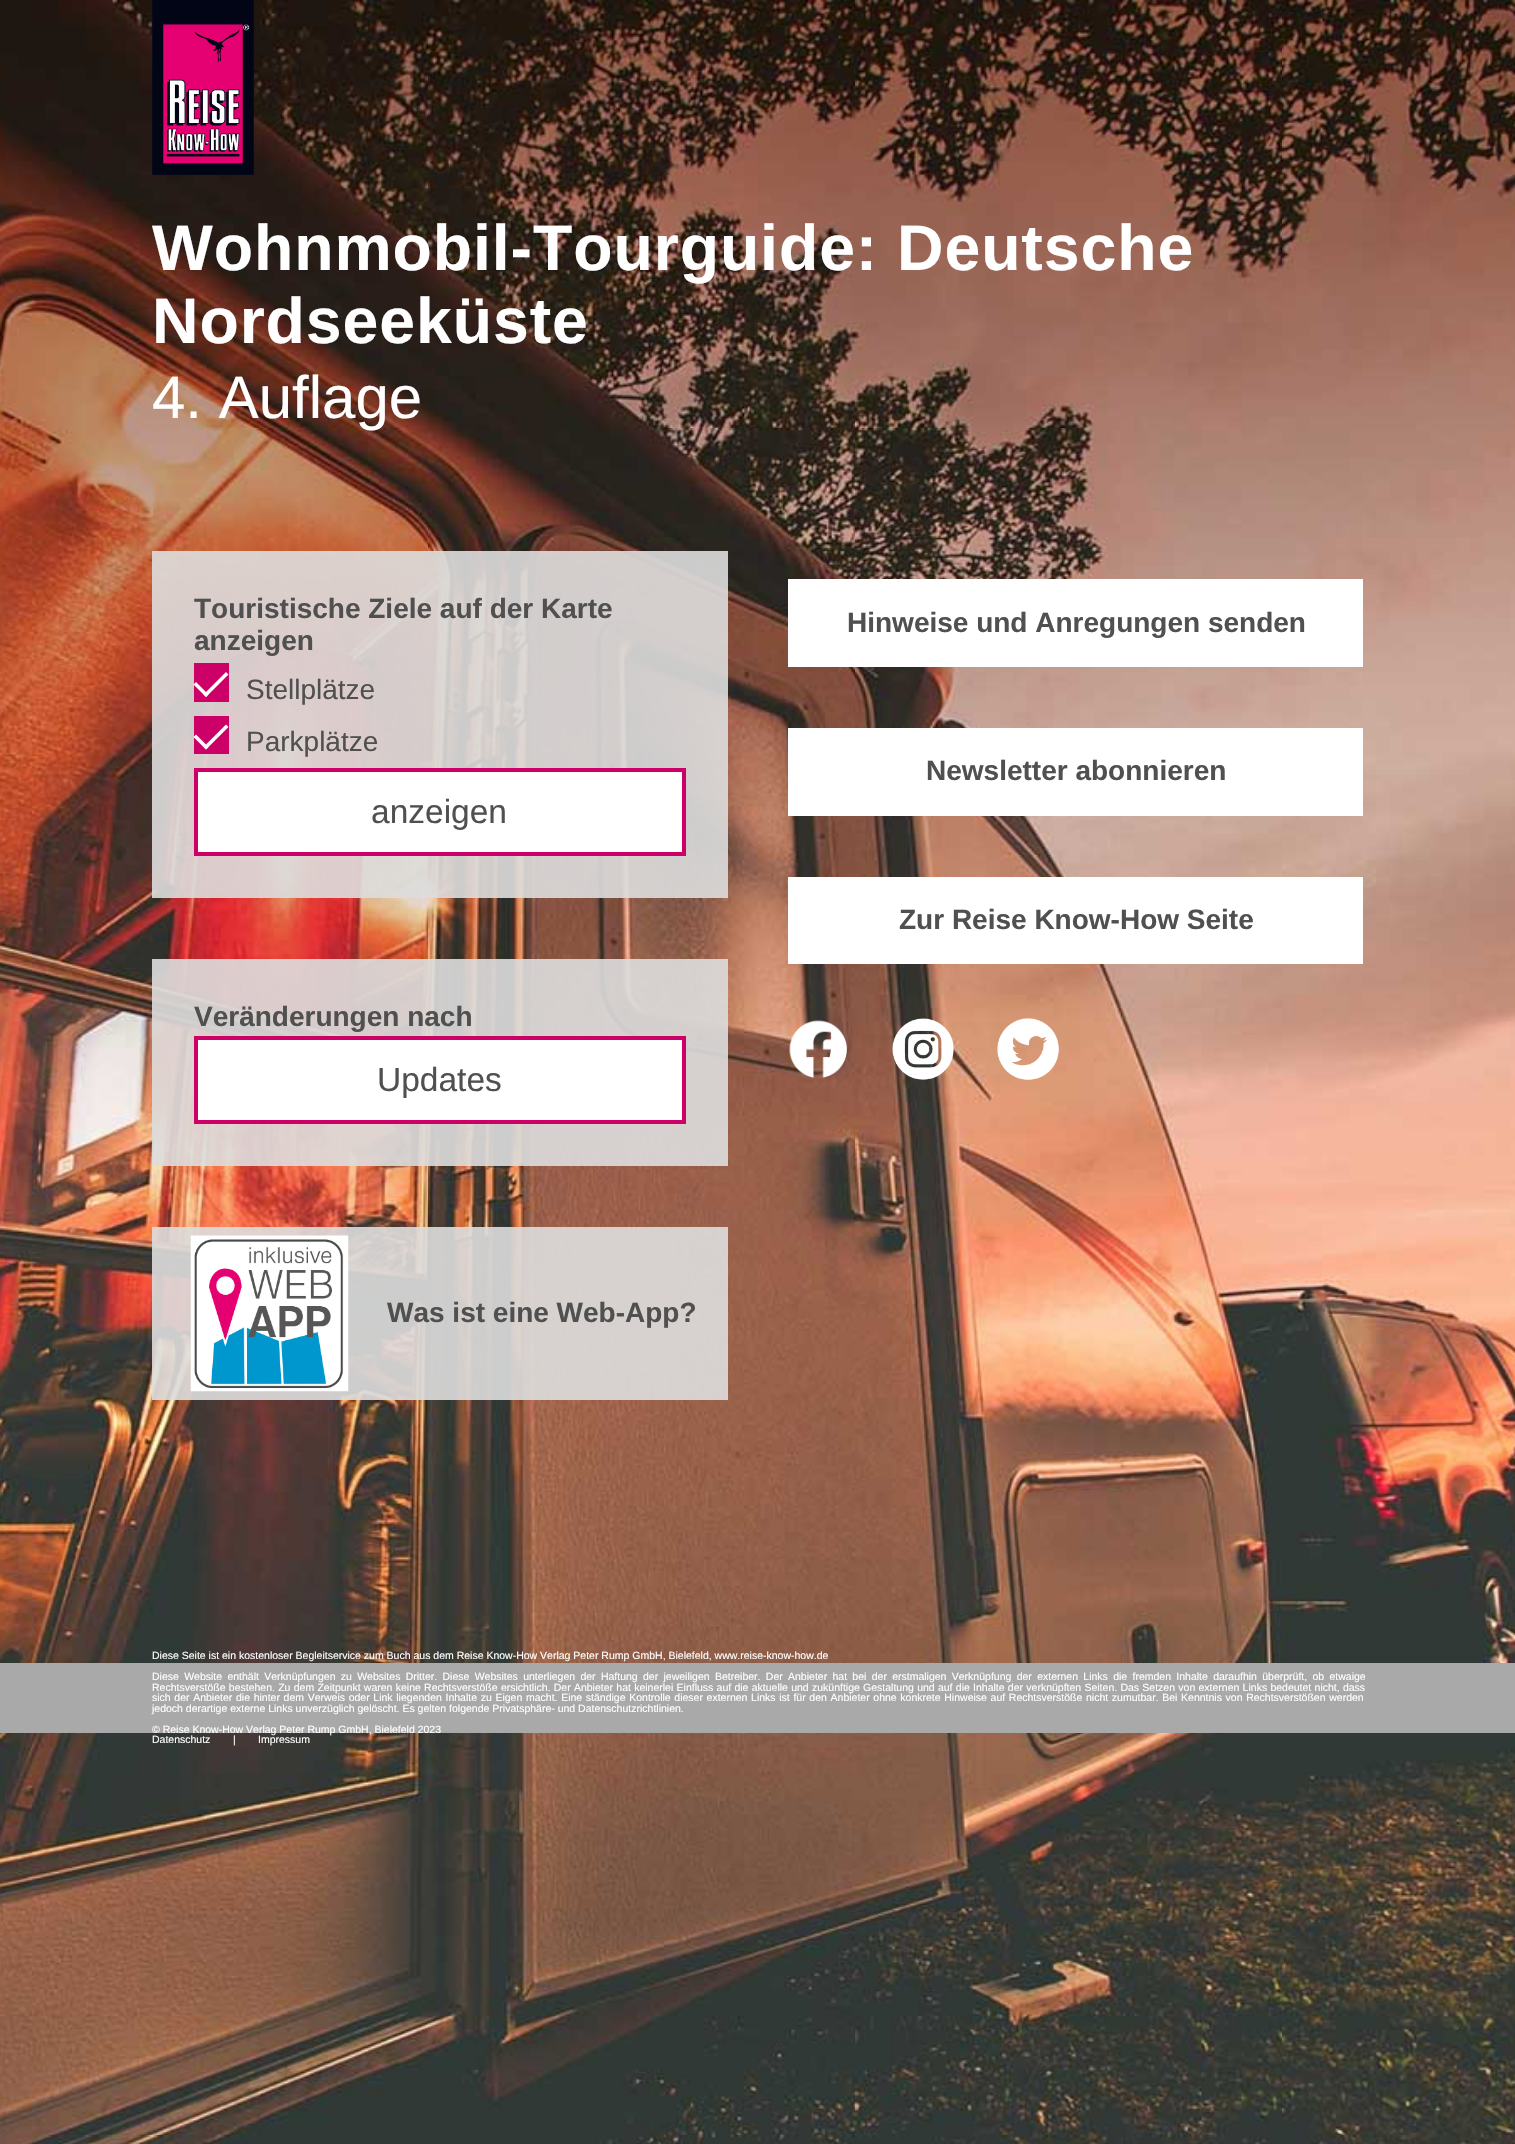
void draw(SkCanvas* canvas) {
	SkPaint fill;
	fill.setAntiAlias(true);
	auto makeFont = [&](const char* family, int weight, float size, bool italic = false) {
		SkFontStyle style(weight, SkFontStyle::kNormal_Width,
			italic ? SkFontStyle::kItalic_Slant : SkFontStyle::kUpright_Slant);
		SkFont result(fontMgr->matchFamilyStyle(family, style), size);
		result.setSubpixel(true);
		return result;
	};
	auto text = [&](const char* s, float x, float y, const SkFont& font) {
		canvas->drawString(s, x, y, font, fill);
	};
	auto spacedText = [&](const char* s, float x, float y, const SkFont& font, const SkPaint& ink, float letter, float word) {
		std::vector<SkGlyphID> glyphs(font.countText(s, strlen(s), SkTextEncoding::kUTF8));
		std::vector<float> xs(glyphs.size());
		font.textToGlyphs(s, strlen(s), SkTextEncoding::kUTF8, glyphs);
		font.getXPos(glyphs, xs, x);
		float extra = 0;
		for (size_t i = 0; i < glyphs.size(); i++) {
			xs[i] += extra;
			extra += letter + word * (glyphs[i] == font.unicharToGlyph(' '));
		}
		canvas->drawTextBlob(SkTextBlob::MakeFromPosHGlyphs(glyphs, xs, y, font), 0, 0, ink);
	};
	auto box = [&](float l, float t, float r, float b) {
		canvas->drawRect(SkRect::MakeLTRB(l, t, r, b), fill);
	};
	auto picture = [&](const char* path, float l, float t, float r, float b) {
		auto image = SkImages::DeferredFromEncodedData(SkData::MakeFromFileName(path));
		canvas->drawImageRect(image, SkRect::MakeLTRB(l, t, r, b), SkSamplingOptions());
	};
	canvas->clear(0xFFFFFFFF);
	picture("image0.png", 0, 0, 1515, 2144);
	picture("image1.png", 152, 0, 254, 175);
	fill.setColor(0xE6DDDDDD);
	box(152, 551, 728, 898);
	fill.setColor(0xFFCC0066);
	box(194, 663, 229, 702);
	fill.setColor(0xFFFFFFFF);
	canvas->drawPath(SkPathBuilder().moveTo(226, 672).lineTo(228.5f, 674.5f).lineTo(206, 697).lineTo(203.5f, 694.5f).close().detach(), fill);
	canvas->drawPath(SkPathBuilder().moveTo(196, 682).lineTo(208.5f, 694.5f).lineTo(206, 697).lineTo(193.5f, 684.5f).close().detach(), fill);
	fill.setColor(0xFFCC0066);
	box(194, 716, 229, 754);
	fill.setColor(0xFFFFFFFF);
	canvas->drawPath(SkPathBuilder().moveTo(226, 724.5f).lineTo(228.5f, 727).lineTo(206, 749.5f).lineTo(203.5f, 747).close().detach(), fill);
	canvas->drawPath(SkPathBuilder().moveTo(196, 734.5f).lineTo(208.5f, 747).lineTo(206, 749.5f).lineTo(193.5f, 737).close().detach(), fill);
	canvas->drawRect(SkRect::MakeLTRB(196, 770, 684, 854), fill);
	fill.setStyle(SkPaint::kStroke_Style);
	fill.setStrokeWidth(4);
	fill.setColor(0xFFCC0066);
	canvas->drawRect(SkRect::MakeLTRB(196, 770, 684, 854), fill);
	fill.setStyle(SkPaint::kFill_Style);
	fill.setColor(0xE6DDDDDD);
	box(152, 959, 728, 1166);
	fill.setColor(0xFFFFFFFF);
	canvas->drawRect(SkRect::MakeLTRB(196, 1038, 684, 1122), fill);
	fill.setStyle(SkPaint::kStroke_Style);
	fill.setColor(0xFFCC0066);
	canvas->drawRect(SkRect::MakeLTRB(196, 1038, 684, 1122), fill);
	fill.setStyle(SkPaint::kFill_Style);
	fill.setColor(0xE6DDDDDD);
	box(152, 1227, 728, 1400);
	picture("image2.png", 190, 1235, 349, 1392);
	fill.setColor(0xFFFFFFFF);
	box(788, 579, 1363, 667);
	box(788, 728, 1363, 816);
	box(788, 877, 1363, 964);
	picture("image3.png", 789, 1020, 847, 1078);
	picture("image4.png", 892, 1018, 954, 1080);
	picture("image5.png", 997, 1018, 1059, 1080);
	fill.setColor(0xFFA9A9A9);
	box(0, 1663, 1515, 1733);
	auto font1 = makeFont("Liberation Sans", 700, 64.4f);
	fill.setColor(0xFFFFFFFF);
	spacedText("Wohnmobil-Tourguide: Deutsche", 152, 270, font1, fill, 0.9f, 0);
	spacedText("Nordseeküste", 152, 343, font1, fill, 0.9f, 0);
	auto font2 = makeFont("Liberation Sans", 400, 60);
	text("4. Auflage", 152, 418, font2);
	auto font3 = makeFont("Liberation Sans", 700, 28);
	fill.setColor(0xFF505050);
	text("Touristische Ziele auf der Karte", 194, 618, font3);
	text("anzeigen", 194, 650, font3);
	auto font4 = makeFont("Liberation Sans", 400, 28);
	text("Stellplätze", 246, 699, font4);
	text("Parkplätze", 246, 751, font4);
	auto font5 = makeFont("Liberation Sans", 400, 33.5f);
	text("anzeigen", 371, 823, font5);
	text("Veränderungen nach", 194, 1026, font3);
	text("Updates", 377, 1091, font5);
	text("Was ist eine Web-App?", 387, 1322, font3);
	text("Hinweise und Anregungen senden", 847, 632, font3);
	text("Newsletter abonnieren", 926, 780, font3);
	text("Zur Reise Know-How Seite", 899, 929, font3);
	auto font6 = makeFont("Liberation Sans", 400, 10.5f);
	fill.setColor(0xFFFFFFFF);
	text("Diese Seite ist ein kostenloser Begleitservice zum Buch aus dem Reise Know-How Verlag Peter Rump GmbH, Bielefeld, www.reise-know-how.de", 152, 1659, font6);
	spacedText("Diese Website enthält Verknüpfungen zu Websites Dritter. Diese Websites unterliegen der Haftung der jeweiligen Betreiber. Der Anbieter hat bei der erstmaligen Verknüpfung der externen Links die fremden Inhalte daraufhin überprüft, ob etwaige", 152, 1680, font6, fill, 0, 2.4f);
	spacedText("Rechtsverstöße bestehen. Zu dem Zeitpunkt waren keine Rechtsverstöße ersichtlich. Der Anbieter hat keinerlei Einfluss auf die aktuelle und zukünftige Gestaltung und auf die Inhalte der verknüpften Seiten. Das Setzen von externen Links bedeutet nicht, dass", 152, 1691, font6, fill, 0, 0.35f);
	spacedText("sich der Anbieter die hinter dem Verweis oder Link liegenden Inhalte zu Eigen macht. Eine ständige Kontrolle dieser externen Links ist für den Anbieter ohne konkrete Hinweise auf Rechtsverstöße nicht zumutbar. Bei Kenntnis von Rechtsverstößen werden", 152, 1701, font6, fill, 0, 0.75f);
	text("jedoch derartige externe Links unverzüglich gelöscht. Es gelten folgende Privatsphäre- und Datenschutzrichtlinien.", 152, 1712, font6);
	text("© Reise Know-How Verlag Peter Rump GmbH, Bielefeld 2023", 152, 1733, font6);
	text("Datenschutz", 152, 1743, font6);
	text("|", 233, 1743, font6);
	text("Impressum", 258, 1743, font6);
}
